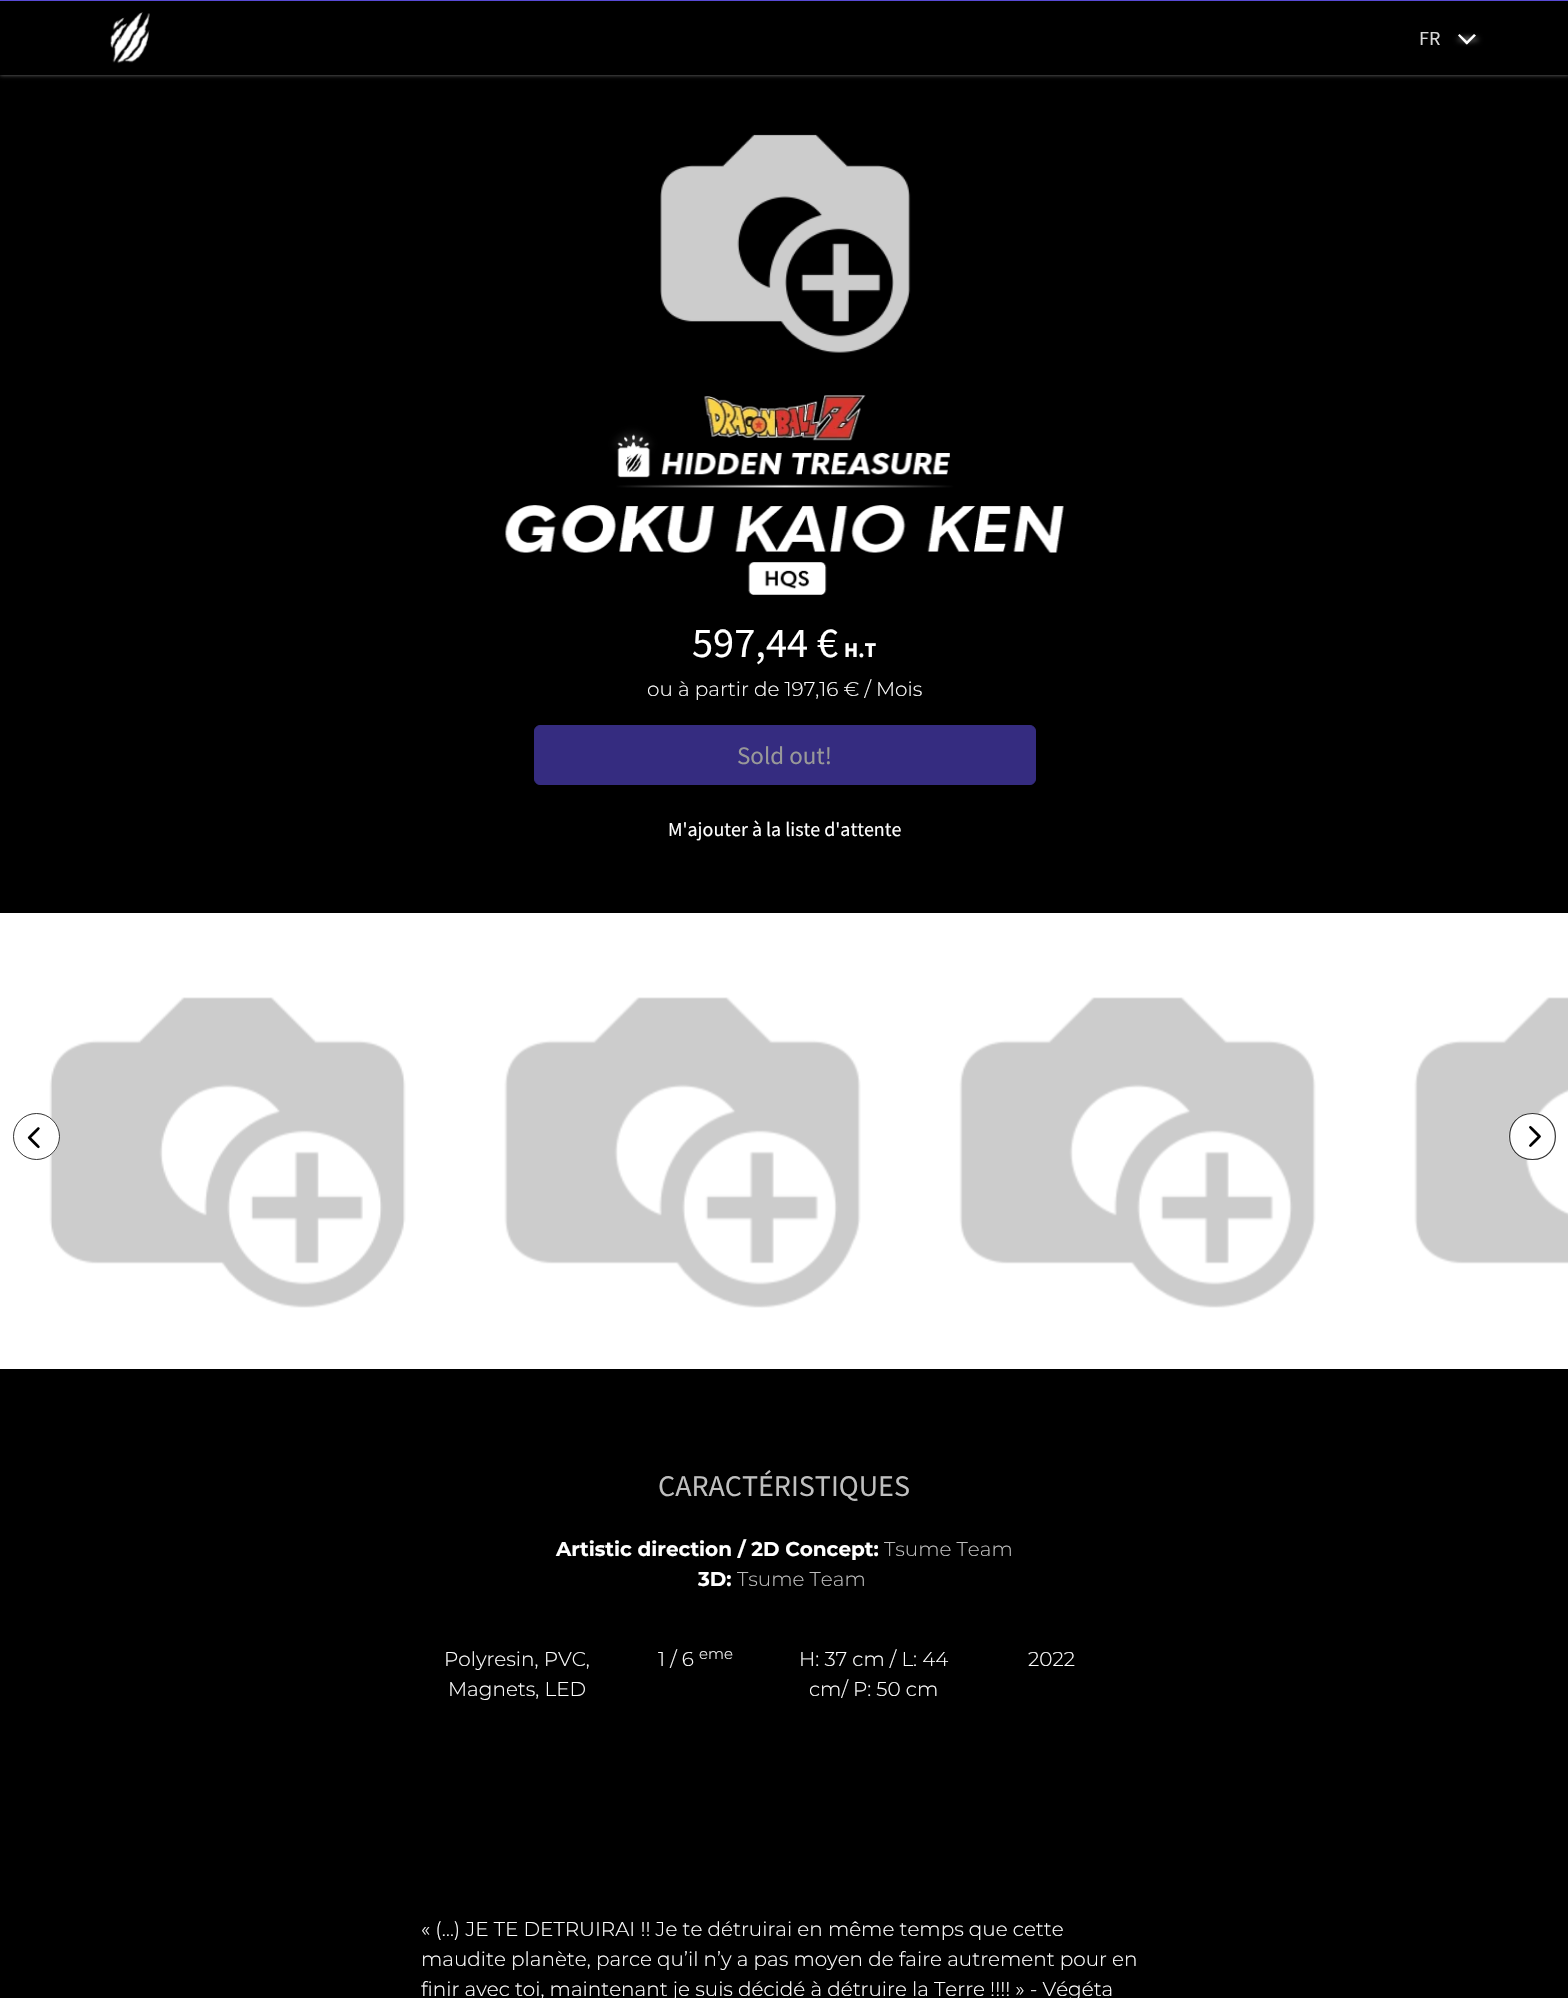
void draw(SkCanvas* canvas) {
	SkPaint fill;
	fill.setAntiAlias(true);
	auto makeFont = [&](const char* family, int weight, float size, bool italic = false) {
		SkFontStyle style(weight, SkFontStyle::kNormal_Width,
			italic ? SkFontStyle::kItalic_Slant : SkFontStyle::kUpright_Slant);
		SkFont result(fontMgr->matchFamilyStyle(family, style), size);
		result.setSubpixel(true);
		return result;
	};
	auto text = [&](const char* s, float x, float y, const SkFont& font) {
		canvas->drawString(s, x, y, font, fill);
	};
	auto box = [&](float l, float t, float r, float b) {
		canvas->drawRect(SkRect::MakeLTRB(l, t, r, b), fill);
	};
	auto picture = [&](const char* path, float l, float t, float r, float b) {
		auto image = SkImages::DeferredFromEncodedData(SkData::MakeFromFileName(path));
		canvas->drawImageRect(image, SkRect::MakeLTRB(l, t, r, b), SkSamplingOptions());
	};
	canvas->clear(0xFFFFFFFF);
	fill.setColor(0xFF000000);
	box(0, 75, 1568, 913);
	fill.setColor(0xFF757575);
	fill.setMaskFilter(SkMaskFilter::MakeBlur(kNormal_SkBlurStyle, 2));
	canvas->drawRect(SkRect::MakeLTRB(0, 0, 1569, 75), fill);
	fill.setMaskFilter(nullptr);
	fill.setColor(0xFF000000);
	box(0, 1, 1568, 75);
	fill.setColor(0xFF584AD5);
	box(0, 0, 1568, 1);
	picture("image0.png", 110, 12, 150, 64);
	fill.setColor(0x75D5D5D5);
	fill.setMaskFilter(SkMaskFilter::MakeBlur(kNormal_SkBlurStyle, 2.5f));
	canvas->drawRect(SkRect::MakeLTRB(1458, 38, 1470, 41), fill);
	fill.setMaskFilter(nullptr);
	fill.setColor(0xFFFFFFFF);
	canvas->drawPath(SkPathBuilder().moveTo(1459.5f, 34).lineTo(1468.5f, 42.5f).lineTo(1466.5f, 44.5f).lineTo(1458, 35.5f).close().detach(), fill);
	fill.setColor(0x75D5D5D5);
	fill.setMaskFilter(SkMaskFilter::MakeBlur(kNormal_SkBlurStyle, 2.5f));
	canvas->drawRect(SkRect::MakeLTRB(1465, 38, 1478, 41), fill);
	fill.setMaskFilter(nullptr);
	fill.setColor(0xFFFFFFFF);
	canvas->drawPath(SkPathBuilder().moveTo(1465.5f, 42.5f).lineTo(1474, 34).lineTo(1476, 35.5f).lineTo(1467, 44.5f).close().detach(), fill);
	picture("image1.png", 660, 134, 911, 353);
	picture("image2.png", 505, 395, 1064, 595);
	fill.setColor(0xFF352C80);
	canvas->drawRoundRect(SkRect::MakeLTRB(534.5f, 725.5f, 1035.5f, 784.5f), 5.5f, 5.5f, fill);
	fill.setStyle(SkPaint::kStroke_Style);
	fill.setStrokeWidth(1);
	canvas->drawRoundRect(SkRect::MakeLTRB(534.5f, 725.5f, 1035.5f, 784.5f), 5.5f, 5.5f, fill);
	picture("image3.png", 49, 997, 406, 1308);
	picture("image4.png", 504, 997, 861, 1308);
	picture("image4.png", 959, 997, 1316, 1308);
	picture("image5.png", 1414, 997, 1568, 1264);
	fill.setStyle(SkPaint::kFill_Style);
	fill.setColor(0xFFFFFFFF);
	canvas->drawCircle(36.5f, 1136.5f, 23.5f, fill);
	fill.setStyle(SkPaint::kStroke_Style);
	fill.setColor(0xCC000000);
	canvas->drawCircle(36.5f, 1136.5f, 23, fill);
	picture("image6.png", 27, 1127, 40, 1149);
	fill.setStyle(SkPaint::kFill_Style);
	fill.setColor(0xFFFFFFFF);
	canvas->drawPath(SkPathBuilder().moveTo(1532, 1160).cubicTo(1501, 1160, 1501, 1113, 1532, 1113).cubicTo(1564, 1113, 1564, 1160, 1532, 1160).close().detach(), fill);
	fill.setStyle(SkPaint::kStroke_Style);
	fill.setStrokeWidth(1.2f);
	fill.setColor(0xCC000000);
	canvas->drawPath(SkPathBuilder().moveTo(1532.5f, 1159.5f).cubicTo(1502, 1159.5f, 1502, 1113.5f, 1532.5f, 1113.5f).cubicTo(1563, 1113.5f, 1563, 1159.5f, 1532.5f, 1159.5f).close().detach(), fill);
	picture("image7.png", 1529, 1125, 1541, 1147);
	fill.setStyle(SkPaint::kFill_Style);
	fill.setColor(0xFF000000);
	box(0, 1369, 1568, 1998);
	auto font1 = makeFont("Source Sans Pro", 400, 20);
	fill.setColor(0xFFD7D7D7);
	text("FR", 1419, 45, font1);
	auto font2 = makeFont("Source Sans Pro", 400, 42.5f);
	fill.setColor(0xFFFFFFFF);
	text("597,44 €", 692, 657, font2);
	auto font3 = makeFont("Source Sans Pro", 700, 21);
	text("H.T", 844, 657, font3);
	auto font4 = makeFont("Montserrat", 300, 20);
	text("ou à partir de 197,16 € / Mois", 647, 696, font4);
	auto font5 = makeFont("Source Sans Pro", 400, 25);
	fill.setColor(0xFF999999);
	text("Sold out!", 737, 764, font5);
	fill.setColor(0xFFFFFFFF);
	text("M'ajouter à la liste d'attente", 668, 836, font1);
	auto font6 = makeFont("Source Sans Pro", 400, 30);
	fill.setColor(0xFFBFBFBF);
	text("CARACTÉRISTIQUES", 658, 1496, font6);
	auto font7 = makeFont("Montserrat", 700, 20);
	fill.setColor(0xFFFFFFFF);
	text("Artistic direction / 2D Concept:", 556, 1556, font7);
	fill.setColor(0xFFBFBFBF);
	text("Tsume Team", 884, 1556, font4);
	fill.setColor(0xFFFFFFFF);
	text("3D:", 698, 1586, font7);
	fill.setColor(0xFFBFBFBF);
	text("Tsume Team", 737, 1586, font4);
	fill.setColor(0xFFFFFFFF);
	text("Polyresin, PVC,", 444, 1666, font4);
	text("Magnets, LED", 448, 1696, font4);
	text("1 / 6", 658, 1666, font4);
	auto font8 = makeFont("Montserrat", 300, 15);
	text("eme", 699, 1659, font8);
	text("H: 37 cm / L: 44", 799, 1666, font4);
	text("cm/ P: 50 cm", 809, 1696, font4);
	text("2022", 1028, 1666, font4);
	text("« (…) JE TE DETRUIRAI !! Je te détruirai en même temps que cette", 421, 1936, font4);
	text("maudite planète, parce qu’il n’y a pas moyen de faire autrement pour en", 421, 1966, font4);
	text("finir avec toi, maintenant je suis décidé à détruire la Terre !!!! » - Végéta", 421, 1996, font4);
}
